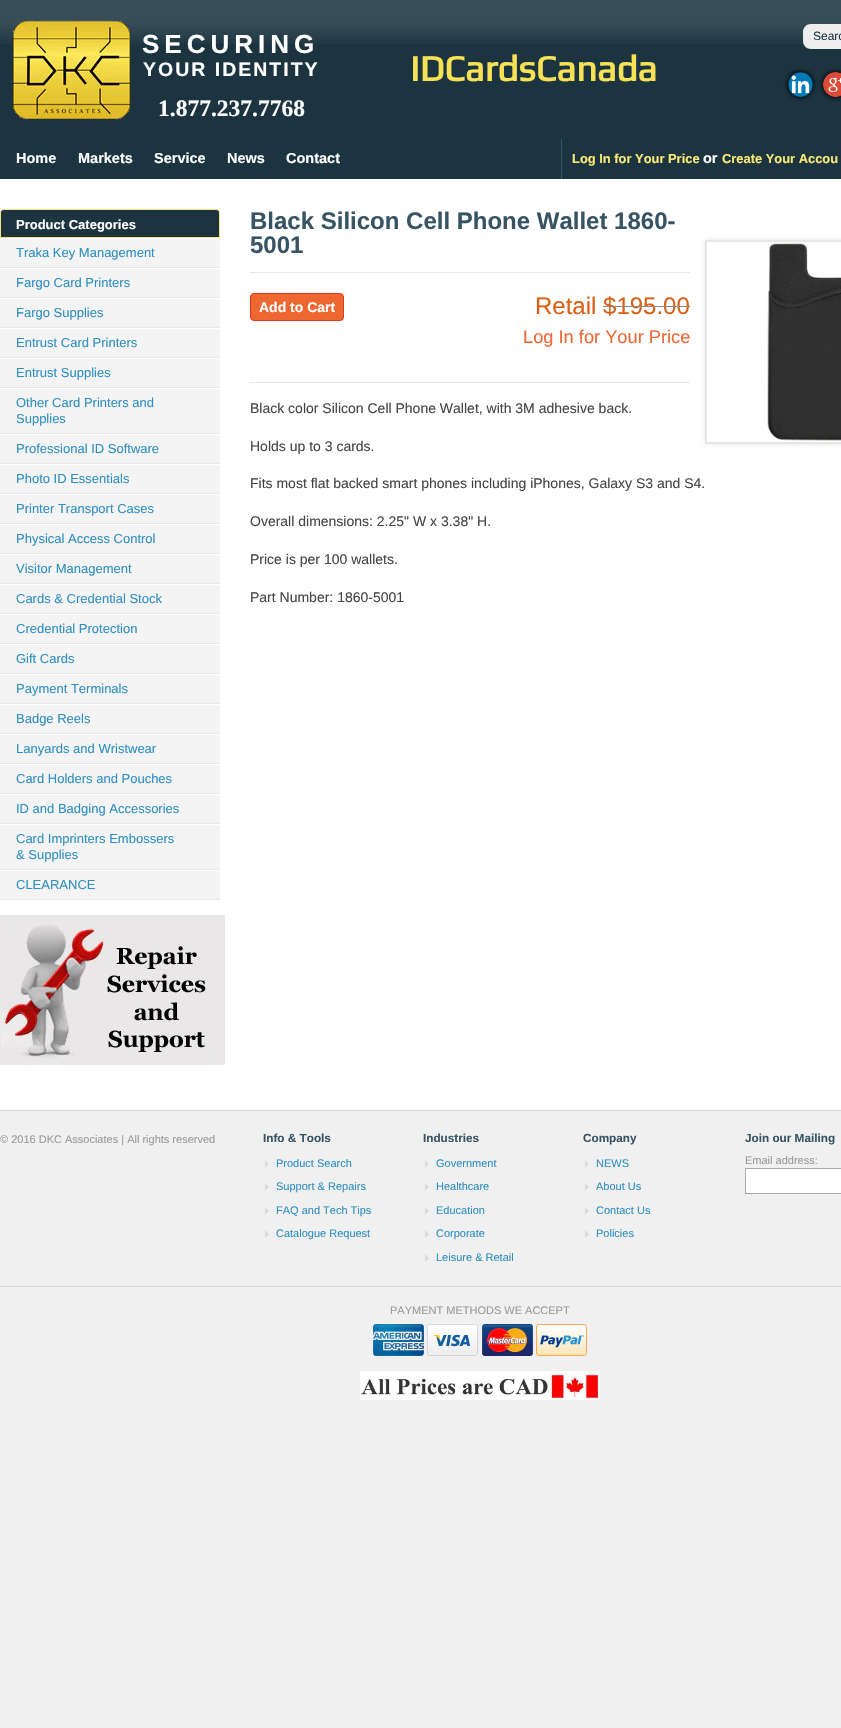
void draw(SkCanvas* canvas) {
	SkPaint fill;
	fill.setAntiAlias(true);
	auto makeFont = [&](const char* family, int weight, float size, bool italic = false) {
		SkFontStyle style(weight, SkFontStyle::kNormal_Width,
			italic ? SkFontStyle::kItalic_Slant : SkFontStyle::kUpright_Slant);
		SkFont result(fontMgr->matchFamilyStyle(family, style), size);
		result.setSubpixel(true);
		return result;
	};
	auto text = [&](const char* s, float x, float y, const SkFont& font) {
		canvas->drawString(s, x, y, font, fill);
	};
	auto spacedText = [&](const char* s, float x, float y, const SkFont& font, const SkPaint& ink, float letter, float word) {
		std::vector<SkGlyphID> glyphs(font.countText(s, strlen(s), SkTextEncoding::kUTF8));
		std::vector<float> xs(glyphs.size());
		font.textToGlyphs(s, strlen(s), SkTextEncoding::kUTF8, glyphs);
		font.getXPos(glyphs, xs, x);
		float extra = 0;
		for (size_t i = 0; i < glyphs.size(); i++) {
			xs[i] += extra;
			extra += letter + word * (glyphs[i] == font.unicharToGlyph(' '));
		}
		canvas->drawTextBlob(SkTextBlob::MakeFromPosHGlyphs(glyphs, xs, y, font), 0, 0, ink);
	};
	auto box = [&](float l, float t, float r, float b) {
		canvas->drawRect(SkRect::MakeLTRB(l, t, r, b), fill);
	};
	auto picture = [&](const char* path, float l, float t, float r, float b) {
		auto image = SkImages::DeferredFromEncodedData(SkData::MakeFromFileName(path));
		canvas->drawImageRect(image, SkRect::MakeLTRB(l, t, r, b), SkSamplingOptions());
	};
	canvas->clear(0xFFF0F0F0);
	fill.setColor(0xFF1B3440);
	box(0, 0, 841, 179);
	picture("image0.png", 0, 0, 841, 44);
	picture("image1.png", 10, 20, 131, 120);
	fill.setColor(0xFFEEEEEE);
	canvas->drawPath(SkPathBuilder().moveTo(811, 24).lineTo(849, 24).lineTo(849, 49).lineTo(811, 49).cubicTo(806.5f, 49, 803, 45.5f, 803, 41).lineTo(803, 32).cubicTo(803, 27.5f, 806.5f, 24, 811, 24).close().detach(), fill);
	fill.setColor(0xCC000000);
	fill.setMaskFilter(SkMaskFilter::MakeBlur(kNormal_SkBlurStyle, 2));
	canvas->drawRoundRect(SkRect::MakeLTRB(787, 71, 814, 98), 13.5f, 13.5f, fill);
	fill.setMaskFilter(nullptr);
	picture("image2.png", 788, 72, 813, 97);
	fill.setMaskFilter(SkMaskFilter::MakeBlur(kNormal_SkBlurStyle, 2));
	canvas->drawRoundRect(SkRect::MakeLTRB(822, 71, 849, 98), 13.5f, 13.5f, fill);
	fill.setMaskFilter(nullptr);
	picture("image3.png", 823, 72, 841, 97);
	fill.setColor(0xFFFFFFFF);
	box(0, 179, 841, 1110);
	fill.setColor(0xFF365463);
	box(561, 139, 562, 179);
	fill.setColor(0xFF1B3440);
	canvas->drawPath(SkPathBuilder().moveTo(4, 209.5f).lineTo(216, 209.5f).cubicTo(218, 209.5f, 219.5f, 211, 219.5f, 213).lineTo(219.5f, 237.5f).lineTo(0.5f, 237.5f).lineTo(0.5f, 213).cubicTo(0.5f, 211, 2, 209.5f, 4, 209.5f).close().detach(), fill);
	fill.setStyle(SkPaint::kStroke_Style);
	fill.setStrokeWidth(1);
	fill.setColor(0xFFFEE086);
	canvas->drawPath(SkPathBuilder().moveTo(4, 209.5f).lineTo(216, 209.5f).cubicTo(218, 209.5f, 219.5f, 211, 219.5f, 213).lineTo(219.5f, 237.5f).lineTo(0.5f, 237.5f).lineTo(0.5f, 213).cubicTo(0.5f, 211, 2, 209.5f, 4, 209.5f).close().detach(), fill);
	fill.setStyle(SkPaint::kFill_Style);
	fill.setColor(0xFFF4F4F4);
	box(0, 239, 220, 267);
	fill.setColor(0xFFE8E8E8);
	box(0, 267, 220, 268);
	fill.setColor(0xFFF4F4F4);
	box(0, 269, 220, 297);
	fill.setColor(0xFFE8E8E8);
	box(0, 297, 220, 298);
	fill.setColor(0xFFF4F4F4);
	box(0, 299, 220, 327);
	fill.setColor(0xFFE8E8E8);
	box(0, 327, 220, 328);
	fill.setColor(0xFFF4F4F4);
	box(0, 329, 220, 357);
	fill.setColor(0xFFE8E8E8);
	box(0, 357, 220, 358);
	fill.setColor(0xFFF4F4F4);
	box(0, 359, 220, 387);
	fill.setColor(0xFFE8E8E8);
	box(0, 387, 220, 388);
	fill.setColor(0xFFF4F4F4);
	box(0, 389, 220, 433);
	fill.setColor(0xFFE8E8E8);
	box(0, 433, 220, 434);
	fill.setColor(0xFFF4F4F4);
	box(0, 435, 220, 463);
	fill.setColor(0xFFE8E8E8);
	box(0, 463, 220, 464);
	fill.setColor(0xFFF4F4F4);
	box(0, 465, 220, 493);
	fill.setColor(0xFFE8E8E8);
	box(0, 493, 220, 494);
	fill.setColor(0xFFF4F4F4);
	box(0, 495, 220, 523);
	fill.setColor(0xFFE8E8E8);
	box(0, 523, 220, 524);
	fill.setColor(0xFFF4F4F4);
	box(0, 525, 220, 553);
	fill.setColor(0xFFE8E8E8);
	box(0, 553, 220, 554);
	fill.setColor(0xFFF4F4F4);
	box(0, 555, 220, 583);
	fill.setColor(0xFFE8E8E8);
	box(0, 583, 220, 584);
	fill.setColor(0xFFF4F4F4);
	box(0, 585, 220, 613);
	fill.setColor(0xFFE8E8E8);
	box(0, 613, 220, 614);
	fill.setColor(0xFFF4F4F4);
	box(0, 615, 220, 643);
	fill.setColor(0xFFE8E8E8);
	box(0, 643, 220, 644);
	fill.setColor(0xFFF4F4F4);
	box(0, 645, 220, 673);
	fill.setColor(0xFFE8E8E8);
	box(0, 673, 220, 674);
	fill.setColor(0xFFF4F4F4);
	box(0, 675, 220, 703);
	fill.setColor(0xFFE8E8E8);
	box(0, 703, 220, 704);
	fill.setColor(0xFFF4F4F4);
	box(0, 705, 220, 733);
	fill.setColor(0xFFE8E8E8);
	box(0, 733, 220, 734);
	fill.setColor(0xFFF4F4F4);
	box(0, 735, 220, 763);
	fill.setColor(0xFFE8E8E8);
	box(0, 763, 220, 764);
	fill.setColor(0xFFF4F4F4);
	box(0, 765, 220, 793);
	fill.setColor(0xFFE8E8E8);
	box(0, 793, 220, 794);
	fill.setColor(0xFFF4F4F4);
	box(0, 795, 220, 823);
	fill.setColor(0xFFE8E8E8);
	box(0, 823, 220, 824);
	fill.setColor(0xFFF4F4F4);
	box(0, 825, 220, 869);
	fill.setColor(0xFFE8E8E8);
	box(0, 869, 220, 870);
	fill.setColor(0xFFF4F4F4);
	box(0, 871, 220, 899);
	fill.setColor(0xFFE8E8E8);
	box(0, 899, 220, 900);
	picture("image4.png", 0, 915, 225, 1065);
	fill.setColor(0xFFE6E6E6);
	box(250, 272, 690, 273);
	box(250, 382, 690, 383);
	fill.setColor(0xFFEE6630);
	canvas->drawRoundRect(SkRect::MakeLTRB(250.5f, 293.5f, 343.5f, 320.5f), 3.5f, 3.5f, fill);
	fill.setStyle(SkPaint::kStroke_Style);
	fill.setColor(0xFFE0371D);
	canvas->drawRoundRect(SkRect::MakeLTRB(250.5f, 293.5f, 343.5f, 320.5f), 3.5f, 3.5f, fill);
	canvas->save();
	canvas->clipPath(SkPathBuilder(SkPathFillType::kEvenOdd).moveTo(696, 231).lineTo(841, 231).lineTo(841, 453).lineTo(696, 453).close().moveTo(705, 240).lineTo(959, 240).lineTo(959, 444).lineTo(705, 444).close().detach(), true);
	fill.setStyle(SkPaint::kFill_Style);
	fill.setColor(0x1A000000);
	fill.setMaskFilter(SkMaskFilter::MakeBlur(kNormal_SkBlurStyle, 2.5f));
	canvas->drawRect(SkRect::MakeLTRB(705, 240, 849, 444), fill);
	fill.setMaskFilter(nullptr);
	canvas->restore();
	fill.setStyle(SkPaint::kStroke_Style);
	fill.setStrokeWidth(2);
	fill.setColor(0xFFE6E6E6);
	canvas->drawRect(SkRect::MakeLTRB(706, 241, 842, 443), fill);
	picture("image5.png", 767, 242, 841, 442);
	fill.setStyle(SkPaint::kFill_Style);
	fill.setColor(0xFFD7D7D7);
	box(0, 1110, 841, 1111);
	fill.setColor(0xFFDBDBDB);
	canvas->drawPath(SkPathBuilder().moveTo(265, 1168).lineTo(265, 1160).lineTo(269, 1164).close().detach(), fill);
	canvas->drawPath(SkPathBuilder().moveTo(265, 1191).lineTo(265, 1183).lineTo(269, 1187).close().detach(), fill);
	canvas->drawPath(SkPathBuilder().moveTo(265, 1215).lineTo(265, 1207).lineTo(269, 1211).close().detach(), fill);
	canvas->drawPath(SkPathBuilder().moveTo(265, 1238).lineTo(265, 1230).lineTo(269, 1234).close().detach(), fill);
	canvas->drawPath(SkPathBuilder().moveTo(425, 1168).lineTo(425, 1160).lineTo(429, 1164).close().detach(), fill);
	canvas->drawPath(SkPathBuilder().moveTo(425, 1191).lineTo(425, 1183).lineTo(429, 1187).close().detach(), fill);
	canvas->drawPath(SkPathBuilder().moveTo(425, 1215).lineTo(425, 1207).lineTo(429, 1211).close().detach(), fill);
	canvas->drawPath(SkPathBuilder().moveTo(425, 1238).lineTo(425, 1230).lineTo(429, 1234).close().detach(), fill);
	canvas->drawPath(SkPathBuilder().moveTo(425, 1262).lineTo(425, 1254).lineTo(429, 1258).close().detach(), fill);
	canvas->drawPath(SkPathBuilder().moveTo(585, 1168).lineTo(585, 1160).lineTo(589, 1164).close().detach(), fill);
	canvas->drawPath(SkPathBuilder().moveTo(585, 1191).lineTo(585, 1183).lineTo(589, 1187).close().detach(), fill);
	canvas->drawPath(SkPathBuilder().moveTo(585, 1215).lineTo(585, 1207).lineTo(589, 1211).close().detach(), fill);
	canvas->drawPath(SkPathBuilder().moveTo(585, 1238).lineTo(585, 1230).lineTo(589, 1234).close().detach(), fill);
	fill.setColor(0xFFFFFFFF);
	canvas->drawRect(SkRect::MakeLTRB(745.5f, 1168.5f, 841.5f, 1193.5f), fill);
	fill.setStyle(SkPaint::kStroke_Style);
	fill.setStrokeWidth(1);
	fill.setColor(0xFFAAAAAA);
	canvas->drawRect(SkRect::MakeLTRB(745.5f, 1168.5f, 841.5f, 1193.5f), fill);
	fill.setStyle(SkPaint::kFill_Style);
	fill.setColor(0xFFD7D7D7);
	box(0, 1286, 841, 1287);
	picture("image6.png", 373, 1324, 424, 1356);
	picture("image7.png", 427, 1324, 478, 1356);
	picture("image8.png", 482, 1324, 533, 1356);
	picture("image9.png", 536, 1324, 587, 1356);
	picture("image10.png", 360, 1371, 600, 1400);
	auto font1 = makeFont("Liberation Sans", 700, 26);
	fill.setColor(0xFFFFFFFF);
	spacedText("SECURING", 142, 53, font1, fill, 5, 0);
	auto font2 = makeFont("Liberation Sans", 700, 19.5f);
	spacedText("YOUR IDENTITY", 143, 76, font2, fill, 2, 0);
	auto font3 = makeFont("Liberation Serif", 700, 23.5f);
	text("1.877.237.7768", 158, 116, font3);
	auto font4 = makeFont("Play", 700, 36.5f);
	fill.setColor(0xFFF7E155);
	text("IDCardsCanada", 410, 81, font4);
	auto font5 = makeFont("Liberation Sans", 400, 12);
	fill.setColor(0xFF1B3440);
	text("Searc", 813, 40, font5);
	auto font6 = makeFont("Liberation Sans", 700, 14.5f);
	fill.setColor(0xFFFFFFFF);
	text("Home", 16, 163, font6);
	text("Markets", 78, 163, font6);
	text("Service", 154, 163, font6);
	text("News", 227, 163, font6);
	text("Contact", 286, 163, font6);
	auto font7 = makeFont("Liberation Sans", 700, 12.9f);
	fill.setColor(0xFFF9E777);
	text("Log In for Your Price", 572, 163, font7);
	fill.setColor(0xFFFFFFFF);
	text("or", 703, 163, font6);
	fill.setColor(0xFFF9E777);
	text("Create Your Accou", 722, 163, font7);
	auto font8 = makeFont("Liberation Sans", 700, 13);
	fill.setColor(0xFFFFFFFF);
	text("Product Categories", 16, 229, font8);
	auto font9 = makeFont("Liberation Sans", 400, 13);
	fill.setColor(0xFF2E8FC1);
	text("Traka Key Management", 16, 257, font9);
	text("Fargo Card Printers", 16, 287, font9);
	text("Fargo Supplies", 16, 317, font9);
	text("Entrust Card Printers", 16, 347, font9);
	text("Entrust Supplies", 16, 377, font9);
	text("Other Card Printers and", 16, 407, font9);
	text("Supplies", 16, 423, font9);
	text("Professional ID Software", 16, 453, font9);
	text("Photo ID Essentials", 16, 483, font9);
	text("Printer Transport Cases", 16, 513, font9);
	text("Physical Access Control", 16, 543, font9);
	text("Visitor Management", 16, 573, font9);
	text("Cards & Credential Stock", 16, 603, font9);
	text("Credential Protection", 16, 633, font9);
	text("Gift Cards", 16, 663, font9);
	text("Payment Terminals", 16, 693, font9);
	text("Badge Reels", 16, 723, font9);
	text("Lanyards and Wristwear", 16, 753, font9);
	text("Card Holders and Pouches", 16, 783, font9);
	text("ID and Badging Accessories", 16, 813, font9);
	text("Card Imprinters Embossers", 16, 843, font9);
	text("& Supplies", 16, 859, font9);
	text("CLEARANCE", 16, 889, font9);
	auto font10 = makeFont("Liberation Sans", 700, 24);
	fill.setColor(0xFF365463);
	text("Black Silicon Cell Phone Wallet 1860-", 250, 229, font10);
	text("5001", 250, 253, font10);
	auto font11 = makeFont("Liberation Sans", 700, 14);
	fill.setColor(0xFFFFFFFF);
	text("Add to Cart", 259, 312, font11);
	auto font12 = makeFont("Liberation Sans", 400, 24);
	fill.setColor(0xFFDA5E13);
	text("Retail $195.00", 535, 314, font12);
	fill.setColor(0xFF8A8A8A);
	box(603, 306, 690, 307);
	auto font13 = makeFont("Liberation Sans", 400, 18.25f);
	fill.setColor(0xFFEE6630);
	text("Log In for Your Price", 523, 343, font13);
	auto font14 = makeFont("Liberation Sans", 400, 14);
	fill.setColor(0xFF444444);
	text("Black color Silicon Cell Phone Wallet, with 3M adhesive back.", 250, 413, font14);
	text("Holds up to 3 cards.", 250, 451, font14);
	text("Fits most flat backed smart phones including iPhones, Galaxy S3 and S4.", 250, 488, font14);
	text("Overall dimensions: 2.25\" W x 3.38\" H.", 250, 526, font14);
	text("Price is per 100 wallets.", 250, 564, font14);
	text("Part Number: 1860-5001", 250, 602, font14);
	auto font15 = makeFont("Liberation Sans", 400, 11);
	fill.setColor(0xFF999999);
	text("© 2016 DKC Associates | All rights reserved", 0, 1143, font15);
	auto font16 = makeFont("Liberation Sans", 700, 11.75f);
	fill.setColor(0xFF365463);
	text("Info & Tools", 263, 1142, font16);
	fill.setColor(0xFF2E8FC1);
	text("Product Search", 276, 1167, font15);
	text("Support & Repairs", 276, 1190, font15);
	text("FAQ and Tech Tips", 276, 1214, font15);
	text("Catalogue Request", 276, 1237, font15);
	fill.setColor(0xFF365463);
	text("Industries", 423, 1142, font16);
	fill.setColor(0xFF2E8FC1);
	text("Government", 436, 1167, font15);
	text("Healthcare", 436, 1190, font15);
	text("Education", 436, 1214, font15);
	text("Corporate", 436, 1237, font15);
	text("Leisure & Retail", 436, 1261, font15);
	fill.setColor(0xFF365463);
	text("Company", 583, 1142, font16);
	fill.setColor(0xFF2E8FC1);
	text("NEWS", 596, 1167, font15);
	text("About Us", 596, 1190, font15);
	text("Contact Us", 596, 1214, font15);
	text("Policies", 596, 1237, font15);
	fill.setColor(0xFF365463);
	text("Join our Mailing", 745, 1142, font16);
	fill.setColor(0xFF999999);
	text("Email address:", 745, 1164, font15);
	text("PAYMENT METHODS WE ACCEPT", 390, 1314, font15);
}
